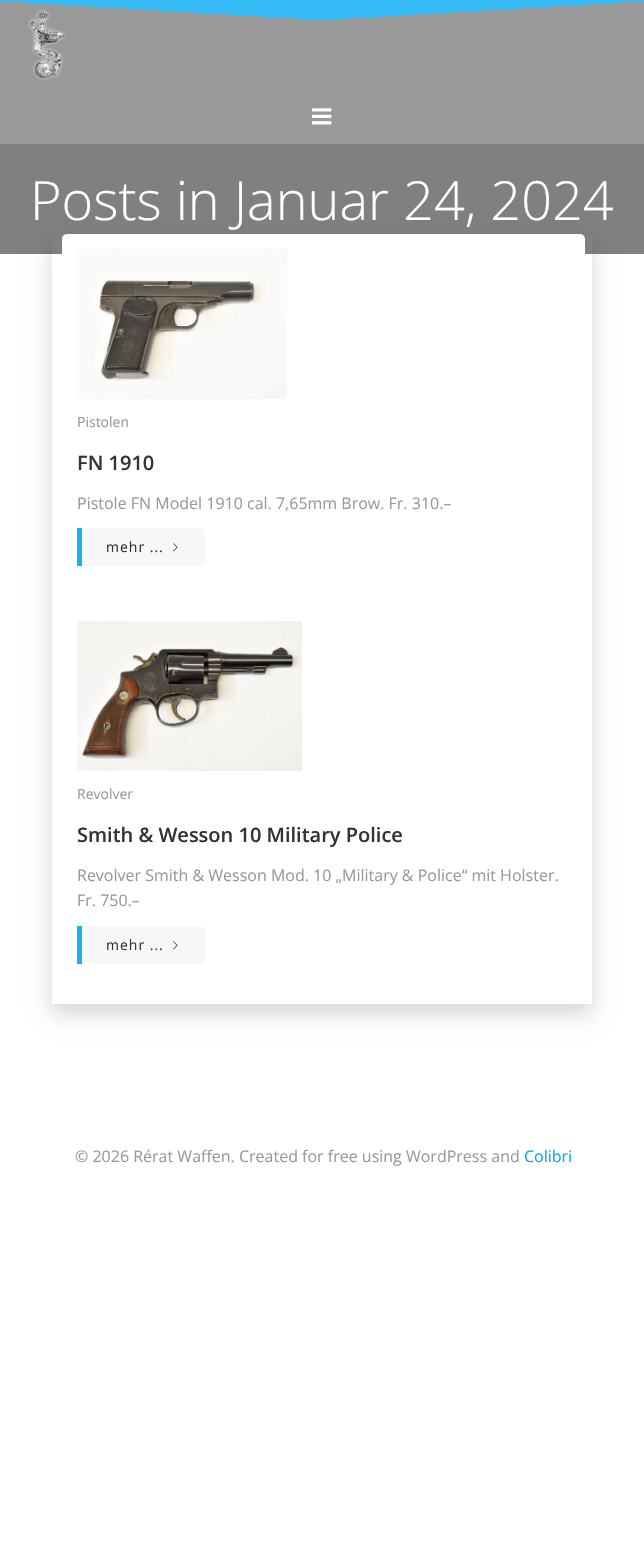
void draw(SkCanvas* canvas) {
	SkPaint fill;
	fill.setAntiAlias(true);
	auto makeFont = [&](const char* family, int weight, float size, bool italic = false) {
		SkFontStyle style(weight, SkFontStyle::kNormal_Width,
			italic ? SkFontStyle::kItalic_Slant : SkFontStyle::kUpright_Slant);
		SkFont result(fontMgr->matchFamilyStyle(family, style), size);
		result.setSubpixel(true);
		return result;
	};
	auto text = [&](const char* s, float x, float y, const SkFont& font) {
		canvas->drawString(s, x, y, font, fill);
	};
	auto spacedText = [&](const char* s, float x, float y, const SkFont& font, const SkPaint& ink, float letter, float word) {
		std::vector<SkGlyphID> glyphs(font.countText(s, strlen(s), SkTextEncoding::kUTF8));
		std::vector<float> xs(glyphs.size());
		font.textToGlyphs(s, strlen(s), SkTextEncoding::kUTF8, glyphs);
		font.getXPos(glyphs, xs, x);
		float extra = 0;
		for (size_t i = 0; i < glyphs.size(); i++) {
			xs[i] += extra;
			extra += letter + word * (glyphs[i] == font.unicharToGlyph(' '));
		}
		canvas->drawTextBlob(SkTextBlob::MakeFromPosHGlyphs(glyphs, xs, y, font), 0, 0, ink);
	};
	auto box = [&](float l, float t, float r, float b) {
		canvas->drawRect(SkRect::MakeLTRB(l, t, r, b), fill);
	};
	auto roundBox = [&](float l, float t, float r, float b, float radius) {
		canvas->drawRoundRect(SkRect::MakeLTRB(l, t, r, b), radius, radius, fill);
	};
	auto picture = [&](const char* path, float l, float t, float r, float b) {
		auto image = SkImages::DeferredFromEncodedData(SkData::MakeFromFileName(path));
		canvas->drawImageRect(image, SkRect::MakeLTRB(l, t, r, b), SkSamplingOptions());
	};
	canvas->clear(0xFFFFFFFF);
	fill.setColor(0xFF999999);
	box(0, 1, 644, 144);
	fill.setColor(0xFF35BAF6);
	canvas->drawPath(SkPathBuilder().moveTo(322, 20).lineTo(0, 1).lineTo(0, 0).lineTo(644, 0).lineTo(644, 1).close().detach(), fill);
	picture("image0.png", 28, 10, 66, 80);
	picture("image1.png", 312, 108, 332, 125);
	fill.setColor(0xFF808080);
	box(0, 144, 644, 254);
	canvas->save();
	canvas->clipPath(SkPathBuilder(SkPathFillType::kEvenOdd).moveTo(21, 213).lineTo(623, 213).lineTo(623, 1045).lineTo(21, 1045).close().moveTo(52, 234).lineTo(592, 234).lineTo(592, 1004).lineTo(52, 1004).close().detach(), true);
	fill.setColor(0x29000000);
	fill.setMaskFilter(SkMaskFilter::MakeBlur(kNormal_SkBlurStyle, 10));
	canvas->drawRect(SkRect::MakeLTRB(52, 244, 592, 1014), fill);
	fill.setMaskFilter(nullptr);
	canvas->restore();
	fill.setColor(0xFFFFFFFF);
	roundBox(62, 234, 585, 1004, 5);
	picture("image2.png", 77, 249, 287, 399);
	fill.setColor(0xFFF5F7F8);
	canvas->drawPath(SkPathBuilder().moveTo(82, 528).lineTo(200, 528).cubicTo(203, 528, 205, 530, 205, 533).lineTo(205, 561).cubicTo(205, 564, 203, 566, 200, 566).lineTo(82, 566).close().detach(), fill);
	fill.setColor(0xFF19B0F5);
	box(77, 528, 82, 566);
	picture("image3.png", 173, 543, 178, 552);
	picture("image4.png", 77, 621, 302, 771);
	fill.setColor(0xFFF5F7F8);
	canvas->drawPath(SkPathBuilder().moveTo(82, 926).lineTo(200, 926).cubicTo(203, 926, 205, 928, 205, 931).lineTo(205, 959).cubicTo(205, 962, 203, 964, 200, 964).lineTo(82, 964).close().detach(), fill);
	fill.setColor(0xFF19B0F5);
	box(77, 926, 82, 964);
	picture("image3.png", 173, 941, 178, 950);
	auto font1 = makeFont("Open Sans", 300, 54);
	fill.setColor(0xFFFFFFFF);
	text("Posts in Januar 24, 2024", 30, 220, font1);
	auto font2 = makeFont("Open Sans", 400, 14);
	fill.setColor(0xFF999999);
	text("Pistolen", 77, 427, font2);
	auto font3 = makeFont("Open Sans", 600, 20);
	fill.setColor(0xFF333333);
	text("FN 1910", 77, 470, font3);
	auto font4 = makeFont("Open Sans", 400, 16);
	fill.setColor(0xFF999999);
	text("Pistole FN Model 1910 cal. 7,65mm Brow. Fr. 310.–", 77, 509, font4);
	fill.setColor(0xFF333333);
	spacedText("mehr ...", 106, 552, font2, fill, 1, 0);
	fill.setColor(0xFF999999);
	text("Revolver", 77, 799, font2);
	fill.setColor(0xFF333333);
	text("Smith & Wesson 10 Military Police", 77, 842, font3);
	fill.setColor(0xFF999999);
	text("Revolver Smith & Wesson Mod. 10 „Military & Police“ mit Holster.", 77, 881, font4);
	text("Fr. 750.–", 77, 906, font4);
	fill.setColor(0xFF333333);
	spacedText("mehr ...", 106, 950, font2, fill, 1, 0);
	fill.setColor(0xFF999999);
	text("© 2026 Rérat Waffen. Created for free using WordPress and", 75, 1162, font4);
	fill.setColor(0xFF03A9F4);
	text("Colibri", 524, 1162, font4);
}
